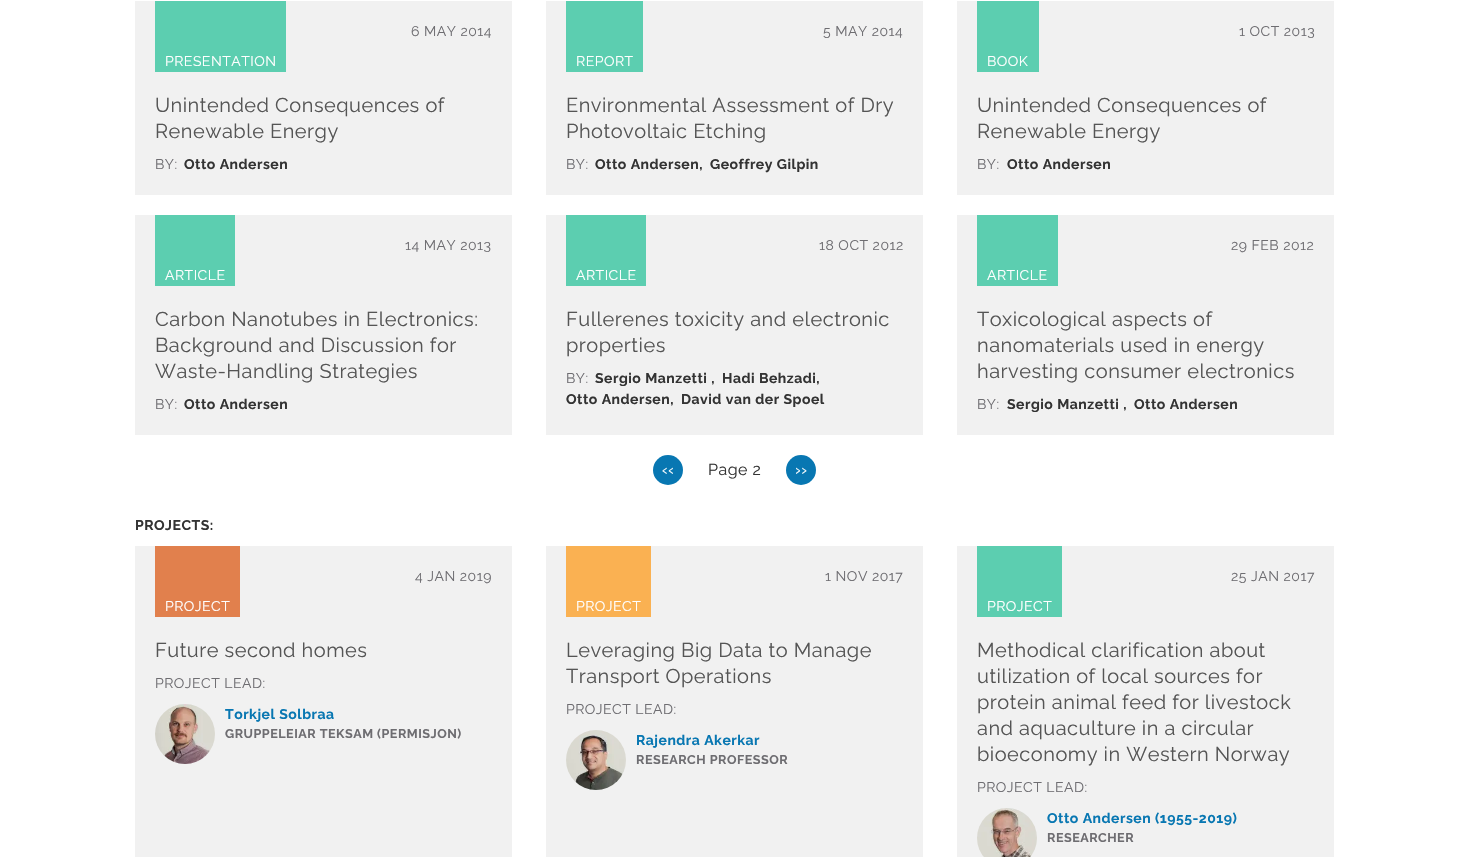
void draw(SkCanvas* canvas) {
	SkPaint fill;
	fill.setAntiAlias(true);
	auto makeFont = [&](const char* family, int weight, float size, bool italic = false) {
		SkFontStyle style(weight, SkFontStyle::kNormal_Width,
			italic ? SkFontStyle::kItalic_Slant : SkFontStyle::kUpright_Slant);
		SkFont result(fontMgr->matchFamilyStyle(family, style), size);
		result.setSubpixel(true);
		return result;
	};
	auto spacedText = [&](const char* s, float x, float y, const SkFont& font, const SkPaint& ink, float letter, float word) {
		std::vector<SkGlyphID> glyphs(font.countText(s, strlen(s), SkTextEncoding::kUTF8));
		std::vector<float> xs(glyphs.size());
		font.textToGlyphs(s, strlen(s), SkTextEncoding::kUTF8, glyphs);
		font.getXPos(glyphs, xs, x);
		float extra = 0;
		for (size_t i = 0; i < glyphs.size(); i++) {
			xs[i] += extra;
			extra += letter + word * (glyphs[i] == font.unicharToGlyph(' '));
		}
		canvas->drawTextBlob(SkTextBlob::MakeFromPosHGlyphs(glyphs, xs, y, font), 0, 0, ink);
	};
	auto box = [&](float l, float t, float r, float b) {
		canvas->drawRect(SkRect::MakeLTRB(l, t, r, b), fill);
	};
	auto picture = [&](const char* path, float l, float t, float r, float b) {
		auto image = SkImages::DeferredFromEncodedData(SkData::MakeFromFileName(path));
		canvas->drawImageRect(image, SkRect::MakeLTRB(l, t, r, b), SkSamplingOptions());
	};
	canvas->clear(0xFFFFFFFF);
	fill.setColor(0xFFF1F1F1);
	box(135, 1, 512, 195);
	fill.setColor(0xFF5CCEB0);
	box(155, 1, 286, 72);
	fill.setColor(0xFFF1F1F1);
	box(546, 1, 923, 195);
	fill.setColor(0xFF5CCEB0);
	box(566, 1, 643, 72);
	fill.setColor(0xFFF1F1F1);
	box(957, 1, 1334, 195);
	fill.setColor(0xFF5CCEB0);
	box(977, 1, 1039, 72);
	fill.setColor(0xFFF1F1F1);
	box(135, 215, 512, 435);
	fill.setColor(0xFF5CCEB0);
	box(155, 215, 235, 286);
	fill.setColor(0xFFF1F1F1);
	box(546, 215, 923, 435);
	fill.setColor(0xFF5CCEB0);
	box(566, 215, 646, 286);
	fill.setColor(0xFFF1F1F1);
	box(957, 215, 1334, 435);
	fill.setColor(0xFF5CCEB0);
	box(977, 215, 1058, 286);
	fill.setColor(0xFF0877B2);
	canvas->drawCircle(668, 470, 15, fill);
	canvas->drawCircle(801, 470, 15, fill);
	fill.setColor(0xFFF1F1F1);
	box(135, 546, 512, 857);
	fill.setColor(0xFFE1804D);
	box(155, 546, 240, 617);
	picture("image0.png", 155, 704, 215, 764);
	fill.setColor(0xFFF1F1F1);
	box(546, 546, 923, 857);
	fill.setColor(0xFFFAB152);
	box(566, 546, 651, 617);
	picture("image1.png", 566, 730, 626, 790);
	fill.setColor(0xFFF1F1F1);
	box(957, 546, 1334, 857);
	fill.setColor(0xFF5CCEB0);
	box(977, 546, 1062, 617);
	picture("image2.png", 977, 808, 1037, 857);
	auto font1 = makeFont("Raleway", 100, 14);
	fill.setColor(0xFF6E6D71);
	spacedText("6 MAY 2014", 411, 36, font1, fill, 0.5f, 0);
	fill.setColor(0xFFFFFFFF);
	spacedText("PRESENTATION", 165, 66, font1, fill, 0.5f, 0);
	auto font2 = makeFont("Raleway", 100, 20);
	fill.setColor(0xFF555555);
	spacedText("Unintended Consequences of", 155, 112, font2, fill, 0.5f, 0);
	spacedText("Renewable Energy", 155, 138, font2, fill, 0.5f, 0);
	fill.setColor(0xFF6E6D71);
	spacedText("BY:", 155, 169, font1, fill, 0.5f, 0);
	auto font3 = makeFont("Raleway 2", 100, 14);
	fill.setColor(0xFF333333);
	spacedText("Otto Andersen", 184, 169, font3, fill, 0.5f, 0);
	fill.setColor(0xFF6E6D71);
	spacedText("5 MAY 2014", 823, 36, font1, fill, 0.5f, 0);
	fill.setColor(0xFFFFFFFF);
	spacedText("REPORT", 576, 66, font1, fill, 0.5f, 0);
	fill.setColor(0xFF555555);
	spacedText("Environmental Assessment of Dry", 566, 112, font2, fill, 0.5f, 0);
	spacedText("Photovoltaic Etching", 566, 138, font2, fill, 0.5f, 0);
	fill.setColor(0xFF6E6D71);
	spacedText("BY:", 566, 169, font1, fill, 0.5f, 0);
	fill.setColor(0xFF333333);
	spacedText("Otto Andersen,", 595, 169, font3, fill, 0.5f, 0);
	spacedText("Geoffrey Gilpin", 710, 169, font3, fill, 0.5f, 0);
	fill.setColor(0xFF6E6D71);
	spacedText("1 OCT 2013", 1239, 36, font1, fill, 0.5f, 0);
	fill.setColor(0xFFFFFFFF);
	spacedText("BOOK", 987, 66, font1, fill, 0.5f, 0);
	fill.setColor(0xFF555555);
	spacedText("Unintended Consequences of", 977, 112, font2, fill, 0.5f, 0);
	spacedText("Renewable Energy", 977, 138, font2, fill, 0.5f, 0);
	fill.setColor(0xFF6E6D71);
	spacedText("BY:", 977, 169, font1, fill, 0.5f, 0);
	fill.setColor(0xFF333333);
	spacedText("Otto Andersen", 1007, 169, font3, fill, 0.5f, 0);
	fill.setColor(0xFF6E6D71);
	spacedText("14 MAY 2013", 405, 250, font1, fill, 0.5f, 0);
	fill.setColor(0xFFFFFFFF);
	spacedText("ARTICLE", 165, 280, font1, fill, 0.5f, 0);
	fill.setColor(0xFF555555);
	spacedText("Carbon Nanotubes in Electronics:", 155, 326, font2, fill, 0.5f, 0);
	spacedText("Background and Discussion for", 155, 352, font2, fill, 0.5f, 0);
	spacedText("Waste-Handling Strategies", 155, 378, font2, fill, 0.5f, 0);
	fill.setColor(0xFF6E6D71);
	spacedText("BY:", 155, 409, font1, fill, 0.5f, 0);
	fill.setColor(0xFF333333);
	spacedText("Otto Andersen", 184, 409, font3, fill, 0.5f, 0);
	fill.setColor(0xFF6E6D71);
	spacedText("18 OCT 2012", 819, 250, font1, fill, 0.5f, 0);
	fill.setColor(0xFFFFFFFF);
	spacedText("ARTICLE", 576, 280, font1, fill, 0.5f, 0);
	fill.setColor(0xFF555555);
	spacedText("Fullerenes toxicity and electronic", 566, 326, font2, fill, 0.5f, 0);
	spacedText("properties", 566, 352, font2, fill, 0.5f, 0);
	fill.setColor(0xFF333333);
	spacedText("Sergio Manzetti ,", 595, 383, font3, fill, 0.5f, 0);
	spacedText("Hadi Behzadi,", 722, 383, font3, fill, 0.5f, 0);
	spacedText("Otto Andersen,", 566, 404, font3, fill, 0.5f, 0);
	spacedText("David van der Spoel", 681, 404, font3, fill, 0.5f, 0);
	fill.setColor(0xFF6E6D71);
	spacedText("BY:", 566, 383, font1, fill, 0.5f, 0);
	spacedText("29 FEB 2012", 1231, 250, font1, fill, 0.5f, 0);
	fill.setColor(0xFFFFFFFF);
	spacedText("ARTICLE", 987, 280, font1, fill, 0.5f, 0);
	fill.setColor(0xFF555555);
	spacedText("Toxicological aspects of", 977, 326, font2, fill, 0.5f, 0);
	spacedText("nanomaterials used in energy", 977, 352, font2, fill, 0.5f, 0);
	spacedText("harvesting consumer electronics", 977, 378, font2, fill, 0.5f, 0);
	fill.setColor(0xFF6E6D71);
	spacedText("BY:", 977, 409, font1, fill, 0.5f, 0);
	fill.setColor(0xFF333333);
	spacedText("Sergio Manzetti ,", 1007, 409, font3, fill, 0.5f, 0);
	spacedText("Otto Andersen", 1134, 409, font3, fill, 0.5f, 0);
	auto font4 = makeFont("Raleway", 100, 16);
	fill.setColor(0xFFFFFFFF);
	spacedText("‹‹", 662, 475, font4, fill, 0.5f, 0);
	fill.setColor(0xFF333333);
	spacedText("Page 2", 708, 475, font4, fill, 0.5f, 0);
	fill.setColor(0xFFFFFFFF);
	spacedText("››", 795, 475, font4, fill, 0.5f, 0);
	fill.setColor(0xFF333333);
	spacedText("PROJECTS:", 135, 530, font3, fill, 0.5f, 0);
	fill.setColor(0xFF6E6D71);
	spacedText("4 JAN 2019", 415, 581, font1, fill, 0.5f, 0);
	fill.setColor(0xFFFFFFFF);
	spacedText("PROJECT", 165, 611, font1, fill, 0.5f, 0);
	fill.setColor(0xFF555555);
	spacedText("Future second homes", 155, 657, font2, fill, 0.5f, 0);
	fill.setColor(0xFF6E6D71);
	spacedText("PROJECT LEAD:", 155, 688, font1, fill, 0.5f, 0);
	fill.setColor(0xFF0877B2);
	spacedText("Torkjel Solbraa", 225, 719, font3, fill, 0.5f, 0);
	auto font5 = makeFont("Raleway 2", 100, 12.6f);
	fill.setColor(0xFF6E6D71);
	spacedText("GRUPPELEIAR TEKSAM (PERMISJON)", 225, 738, font5, fill, 0.5f, 0);
	spacedText("1 NOV 2017", 825, 581, font1, fill, 0.5f, 0);
	fill.setColor(0xFFFFFFFF);
	spacedText("PROJECT", 576, 611, font1, fill, 0.5f, 0);
	fill.setColor(0xFF555555);
	spacedText("Leveraging Big Data to Manage", 566, 657, font2, fill, 0.5f, 0);
	spacedText("Transport Operations", 566, 683, font2, fill, 0.5f, 0);
	fill.setColor(0xFF6E6D71);
	spacedText("PROJECT LEAD:", 566, 714, font1, fill, 0.5f, 0);
	fill.setColor(0xFF0877B2);
	spacedText("Rajendra Akerkar", 636, 745, font3, fill, 0.5f, 0);
	fill.setColor(0xFF6E6D71);
	spacedText("RESEARCH PROFESSOR", 636, 764, font5, fill, 0.5f, 0);
	spacedText("25 JAN 2017", 1231, 581, font1, fill, 0.5f, 0);
	fill.setColor(0xFFFFFFFF);
	spacedText("PROJECT", 987, 611, font1, fill, 0.5f, 0);
	fill.setColor(0xFF555555);
	spacedText("Methodical clarification about", 977, 657, font2, fill, 0.5f, 0);
	spacedText("utilization of local sources for", 977, 683, font2, fill, 0.5f, 0);
	spacedText("protein animal feed for livestock", 977, 709, font2, fill, 0.5f, 0);
	spacedText("and aquaculture in a circular", 977, 735, font2, fill, 0.5f, 0);
	spacedText("bioeconomy in Western Norway", 977, 761, font2, fill, 0.5f, 0);
	fill.setColor(0xFF6E6D71);
	spacedText("PROJECT LEAD:", 977, 792, font1, fill, 0.5f, 0);
	fill.setColor(0xFF0877B2);
	spacedText("Otto Andersen (1955-2019)", 1047, 823, font3, fill, 0.5f, 0);
	fill.setColor(0xFF6E6D71);
	spacedText("RESEARCHER", 1047, 842, font5, fill, 0.5f, 0);
}
